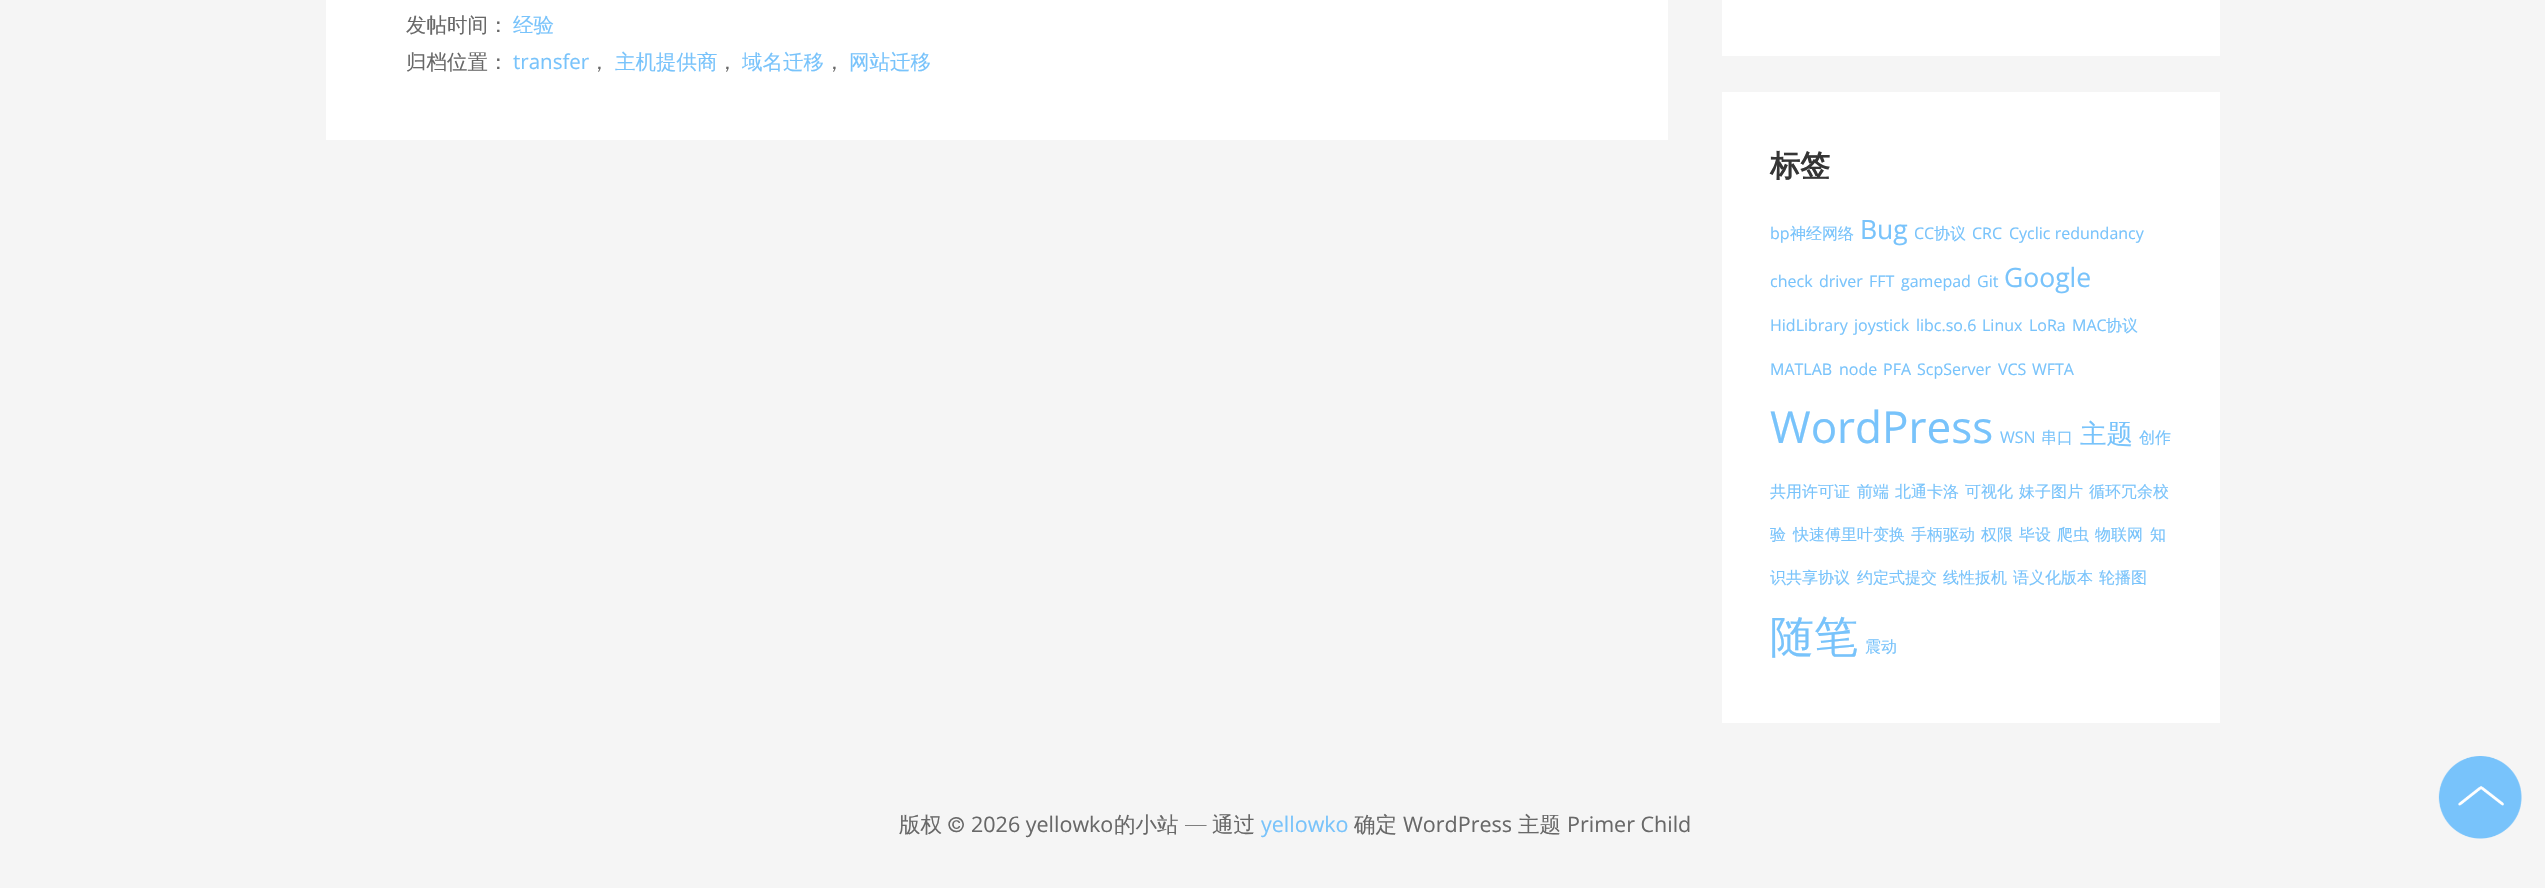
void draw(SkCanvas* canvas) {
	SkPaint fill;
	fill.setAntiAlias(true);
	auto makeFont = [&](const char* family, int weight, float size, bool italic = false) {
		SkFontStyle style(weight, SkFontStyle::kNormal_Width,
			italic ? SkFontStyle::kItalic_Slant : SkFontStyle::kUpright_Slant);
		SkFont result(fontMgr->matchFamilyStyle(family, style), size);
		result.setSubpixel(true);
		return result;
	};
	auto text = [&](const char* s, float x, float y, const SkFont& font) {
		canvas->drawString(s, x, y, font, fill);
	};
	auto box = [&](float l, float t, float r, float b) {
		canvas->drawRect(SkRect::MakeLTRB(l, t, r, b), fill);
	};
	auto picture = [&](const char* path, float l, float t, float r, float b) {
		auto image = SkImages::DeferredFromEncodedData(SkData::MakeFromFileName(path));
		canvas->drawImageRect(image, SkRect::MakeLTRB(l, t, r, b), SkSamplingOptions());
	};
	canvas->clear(0xFFF5F5F5);
	fill.setColor(0xFFFFFFFF);
	box(326, 0, 1668, 140);
	box(1722, 0, 2220, 56);
	box(1722, 92, 2220, 723);
	picture("image0.png", 2438, 756, 2522, 839);
	auto font1 = makeFont("WenQuanYi Zen Hei", 500, 20.5f);
	fill.setColor(0xFF686868);
	text("发帖时间：", 406, 32, font1);
	fill.setColor(0xFF78C3FB);
	text("经验", 513, 32, font1);
	fill.setColor(0xFF686868);
	text("归档位置：", 406, 69, font1);
	auto font2 = makeFont("Open Sans", 400, 20.5f);
	fill.setColor(0xFF78C3FB);
	text("transfer", 513, 69, font2);
	fill.setColor(0xFF686868);
	text("，", 589, 69, font1);
	fill.setColor(0xFF78C3FB);
	text("主机提供商", 615, 69, font1);
	fill.setColor(0xFF686868);
	text("，", 717, 69, font1);
	fill.setColor(0xFF78C3FB);
	text("域名迁移", 742, 69, font1);
	fill.setColor(0xFF686868);
	text("，", 824, 69, font1);
	fill.setColor(0xFF78C3FB);
	text("网站迁移", 849, 69, font1);
	auto font3 = makeFont("WenQuanYi Zen Hei", 700, 30);
	fill.setColor(0xFF353535);
	text("标签", 1770, 176, font3);
	auto font4 = makeFont("Open Sans", 400, 16);
	fill.setColor(0xFF78C3FB);
	text("bp", 1770, 239, font4);
	auto font5 = makeFont("WenQuanYi Zen Hei", 500, 16);
	text("神经网络", 1790, 239, font5);
	auto font6 = makeFont("Open Sans", 400, 26.5f);
	text("Bug", 1860, 239, font6);
	text("CC", 1914, 239, font4);
	text("协议", 1934, 239, font5);
	text("CRC", 1972, 239, font4);
	text("Cyclic redundancy", 2009, 239, font4);
	text("check", 1770, 287, font4);
	text("driver", 1819, 287, font4);
	text("FFT", 1869, 287, font4);
	text("gamepad", 1901, 287, font4);
	text("Git", 1977, 287, font4);
	text("Google", 2004, 287, font6);
	text("HidLibrary", 1770, 331, font4);
	text("joystick", 1854, 331, font4);
	text("libc.so.6", 1916, 331, font4);
	text("Linux", 1982, 331, font4);
	text("LoRa", 2029, 331, font4);
	text("MAC", 2072, 331, font4);
	text("协议", 2106, 331, font5);
	text("MATLAB", 1770, 375, font4);
	text("node", 1839, 375, font4);
	text("PFA", 1883, 375, font4);
	text("ScpServer", 1917, 375, font4);
	text("VCS", 1998, 375, font4);
	text("WFTA", 2032, 375, font4);
	auto font7 = makeFont("Open Sans", 400, 44);
	text("WordPress", 1770, 443, font7);
	text("WSN", 2000, 443, font4);
	text("串口", 2041, 443, font5);
	auto font8 = makeFont("WenQuanYi Zen Hei", 500, 26.5f);
	text("主题", 2080, 443, font8);
	text("创作", 2139, 443, font5);
	text("共用许可证", 1770, 497, font5);
	text("前端", 1857, 497, font5);
	text("北通卡洛", 1895, 497, font5);
	text("可视化", 1965, 497, font5);
	text("妹子图片", 2019, 497, font5);
	text("循环冗余校", 2089, 497, font5);
	text("验", 1770, 540, font5);
	text("快速傅里叶变换", 1793, 540, font5);
	text("手柄驱动", 1911, 540, font5);
	text("权限", 1981, 540, font5);
	text("毕设", 2019, 540, font5);
	text("爬虫", 2057, 540, font5);
	text("物联网", 2095, 540, font5);
	text("知", 2150, 540, font5);
	text("识共享协议", 1770, 583, font5);
	text("约定式提交", 1857, 583, font5);
	text("线性扳机", 1943, 583, font5);
	text("语义化版本", 2013, 583, font5);
	text("轮播图", 2099, 583, font5);
	auto font9 = makeFont("WenQuanYi Zen Hei", 500, 44);
	text("随笔", 1770, 652, font9);
	text("震动", 1865, 652, font5);
	auto font10 = makeFont("WenQuanYi Zen Hei", 500, 21.5f);
	fill.setColor(0xFF686868);
	text("版权", 899, 832, font10);
	text("©", 948, 832, font10);
	auto font11 = makeFont("Open Sans", 400, 21.5f);
	text("2026 yellowko", 971, 832, font11);
	text("的小站", 1114, 832, font10);
	text("—", 1185, 832, font10);
	text("通过", 1212, 832, font10);
	fill.setColor(0xFF78C3FB);
	text("yellowko", 1261, 832, font11);
	fill.setColor(0xFF686868);
	text("确定", 1354, 832, font10);
	text("WordPress", 1403, 832, font11);
	text("主题", 1518, 832, font10);
	text("Primer Child", 1567, 832, font11);
}
